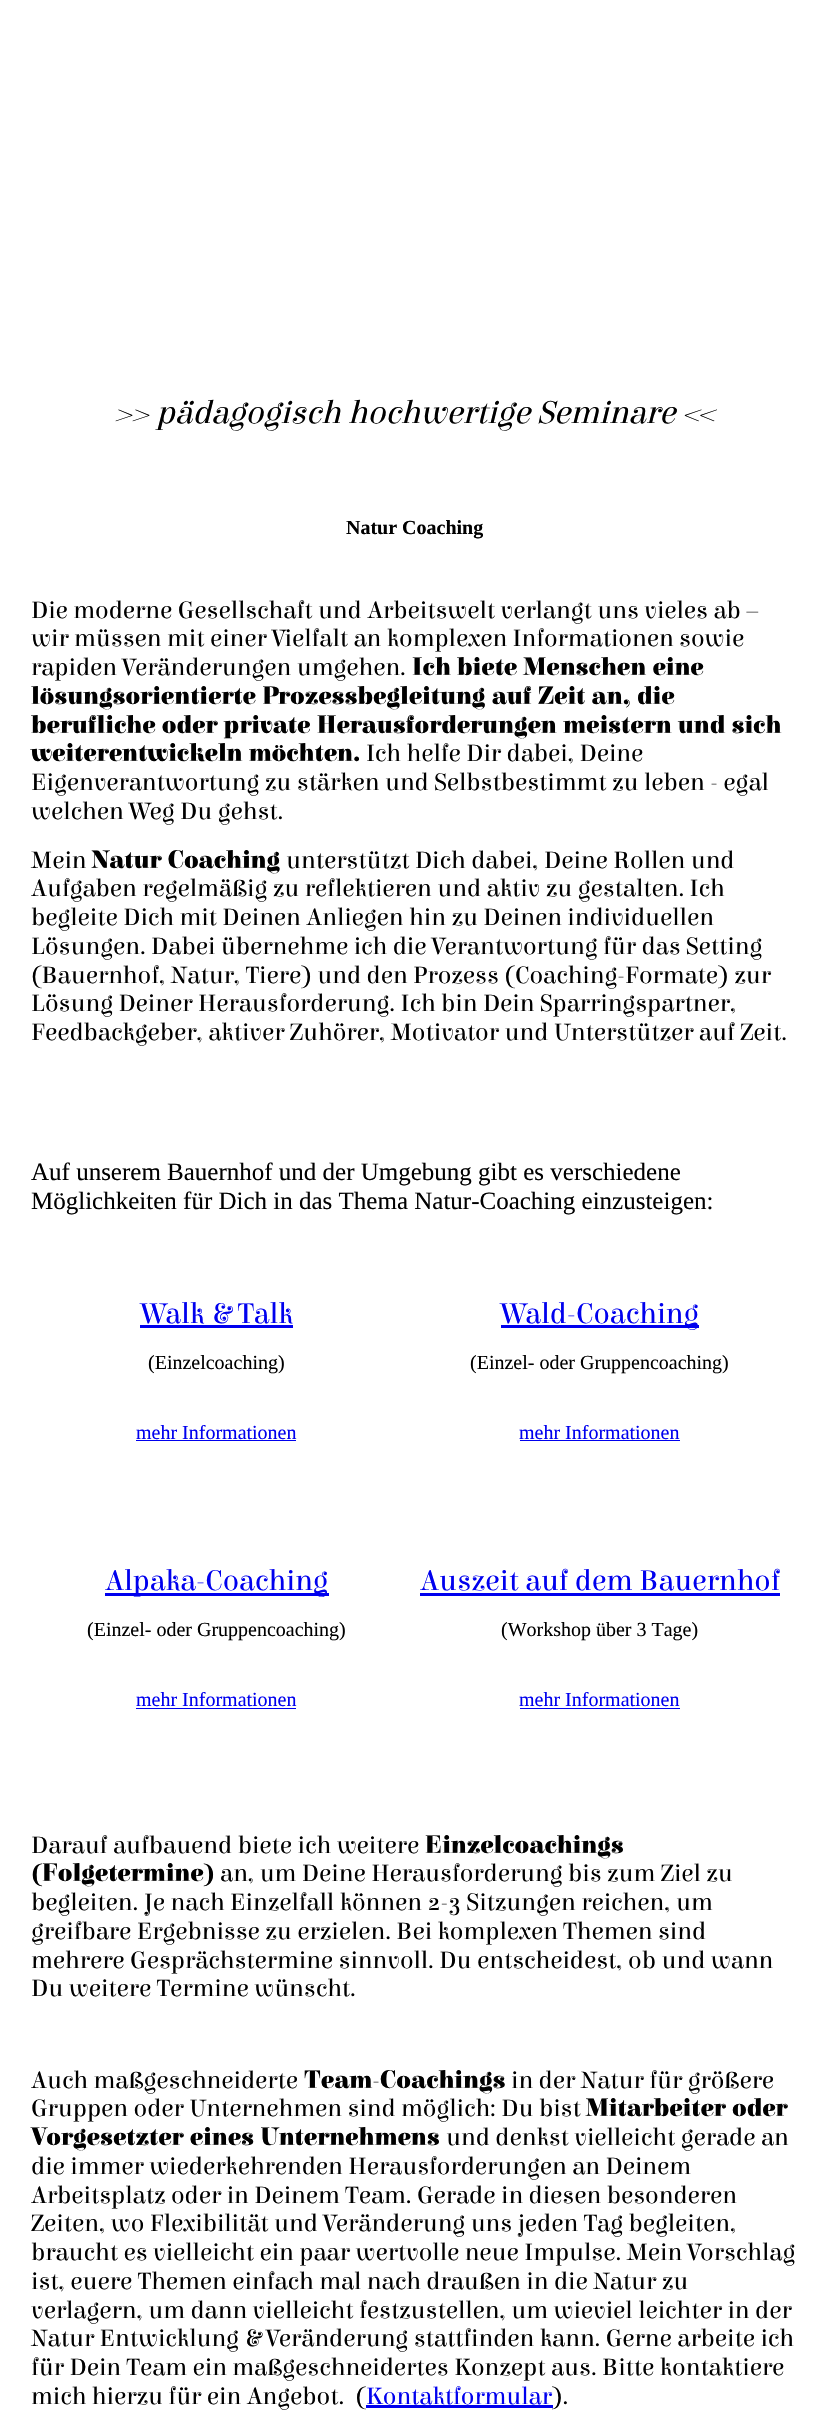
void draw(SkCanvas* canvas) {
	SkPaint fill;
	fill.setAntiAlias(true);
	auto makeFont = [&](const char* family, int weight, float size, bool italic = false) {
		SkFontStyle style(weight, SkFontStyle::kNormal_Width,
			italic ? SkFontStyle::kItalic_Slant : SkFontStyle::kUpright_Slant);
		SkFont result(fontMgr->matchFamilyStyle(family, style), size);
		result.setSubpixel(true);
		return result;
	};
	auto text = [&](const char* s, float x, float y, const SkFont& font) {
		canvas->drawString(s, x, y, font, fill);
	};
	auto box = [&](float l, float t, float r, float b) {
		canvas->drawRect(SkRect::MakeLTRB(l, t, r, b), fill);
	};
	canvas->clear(0xFFFFFFFF);
	fill.setColor(0xFF0000EE);
	box(140, 1325, 293, 1328);
	box(501, 1325, 699, 1328);
	box(136, 1440, 296, 1441);
	box(520, 1440, 680, 1441);
	box(105, 1593, 329, 1596);
	box(420, 1593, 780, 1596);
	box(136, 1708, 296, 1709);
	box(520, 1708, 680, 1709);
	box(366, 2405, 553, 2408);
	auto font1 = makeFont("Elsie", 400, 33.1f, true);
	fill.setColor(0xFF000000);
	text(">> pädagogisch hochwertige Seminare <<", 115, 423, font1);
	auto font2 = makeFont("Liberation Serif", 700, 20);
	text("Natur Coaching", 346, 534, font2);
	auto font3 = makeFont("Elsie", 400, 25);
	text("Die moderne Gesellschaft und Arbeitswelt verlangt uns vieles ab –", 31, 618, font3);
	text("wir müssen mit einer Vielfalt an komplexen Informationen sowie", 31, 646, font3);
	text("rapiden Veränderungen umgehen.", 31, 675, font3);
	auto font4 = makeFont("Elsie", 900, 25);
	text("Ich biete Menschen eine", 412, 675, font4);
	text("lösungsorientierte Prozessbegleitung auf Zeit an, die", 31, 704, font4);
	text("berufliche oder private Herausforderungen meistern und sich", 31, 733, font4);
	text("weiterentwickeln möchten.", 31, 761, font4);
	text("Ich helfe Dir dabei, Deine", 366, 761, font3);
	text("Eigenverantwortung zu stärken und Selbstbestimmt zu leben - egal", 31, 790, font3);
	text("welchen Weg Du gehst.", 31, 819, font3);
	text("Mein", 31, 868, font3);
	text("Natur Coaching", 92, 868, font4);
	text("unterstützt Dich dabei, Deine Rollen und", 286, 868, font3);
	text("Aufgaben regelmäßig zu reflektieren und aktiv zu gestalten. Ich", 31, 896, font3);
	text("begleite Dich mit Deinen Anliegen hin zu Deinen individuellen", 31, 925, font3);
	text("Lösungen. Dabei übernehme ich die Verantwortung für das Setting", 31, 954, font3);
	text("(Bauernhof, Natur, Tiere) und den Prozess (Coaching-Formate) zur", 31, 983, font3);
	text("Lösung Deiner Herausforderung. Ich bin Dein Sparringspartner,", 31, 1011, font3);
	text("Feedbackgeber, aktiver Zuhörer, Motivator und Unterstützer auf Zeit.", 31, 1040, font3);
	auto font5 = makeFont("Liberation Serif", 400, 25);
	text("Auf unserem Bauernhof und der Umgebung gibt es verschiedene", 31, 1180, font5);
	text("Möglichkeiten für Dich in das Thema Natur-Coaching einzusteigen:", 31, 1209, font5);
	auto font6 = makeFont("Elsie", 400, 30);
	fill.setColor(0xFF0000EE);
	text("Walk & Talk", 141, 1323, font6);
	auto font7 = makeFont("Liberation Serif", 400, 20);
	fill.setColor(0xFF000000);
	text("(Einzelcoaching)", 148, 1369, font7);
	fill.setColor(0xFF0000EE);
	text("Wald-Coaching", 501, 1323, font6);
	fill.setColor(0xFF000000);
	text("(Einzel- oder Gruppencoaching)", 470, 1369, font7);
	fill.setColor(0xFF0000EE);
	text("mehr Informationen", 136, 1439, font7);
	text("mehr Informationen", 519, 1439, font7);
	text("Alpaka-Coaching", 105, 1590, font6);
	fill.setColor(0xFF000000);
	text("(Einzel- oder Gruppencoaching)", 87, 1636, font7);
	fill.setColor(0xFF0000EE);
	text("Auszeit auf dem Bauernhof", 420, 1590, font6);
	fill.setColor(0xFF000000);
	text("(Workshop über 3 Tage)", 501, 1636, font7);
	fill.setColor(0xFF0000EE);
	text("mehr Informationen", 136, 1706, font7);
	text("mehr Informationen", 519, 1706, font7);
	fill.setColor(0xFF000000);
	text("Darauf aufbauend biete ich weitere", 31, 1853, font3);
	text("Einzelcoachings", 425, 1853, font4);
	text("(Folgetermine)", 31, 1881, font4);
	text("an, um Deine Herausforderung bis zum Ziel zu", 220, 1881, font3);
	text("begleiten. Je nach Einzelfall können 2-3 Sitzungen reichen, um", 31, 1910, font3);
	text("greifbare Ergebnisse zu erzielen. Bei komplexen Themen sind", 31, 1939, font3);
	text("mehrere Gesprächstermine sinnvoll. Du entscheidest, ob und wann", 31, 1968, font3);
	text("Du weitere Termine wünscht.", 31, 1996, font3);
	text("Auch maßgeschneiderte", 31, 2088, font3);
	text("Team-Coachings", 304, 2088, font4);
	text("in der Natur für größere", 511, 2088, font3);
	text("Gruppen oder Unternehmen sind möglich: Du bist", 31, 2116, font3);
	text("Mitarbeiter oder", 586, 2116, font4);
	text("Vorgesetzter eines Unternehmens", 31, 2145, font4);
	text("und denkst vielleicht gerade an", 446, 2145, font3);
	text("die immer wiederkehrenden Herausforderungen an Deinem", 31, 2174, font3);
	text("Arbeitsplatz oder in Deinem Team. Gerade in diesen besonderen", 31, 2203, font3);
	text("Zeiten, wo Flexibilität und Veränderung uns jeden Tag begleiten,", 31, 2231, font3);
	text("braucht es vielleicht ein paar wertvolle neue Impulse. Mein Vorschlag", 31, 2260, font3);
	text("ist, euere Themen einfach mal nach draußen in die Natur zu", 31, 2289, font3);
	text("verlagern, um dann vielleicht festzustellen, um wieviel leichter in der", 31, 2318, font3);
	text("Natur Entwicklung & Veränderung stattfinden kann. Gerne arbeite ich", 31, 2346, font3);
	text("für Dein Team ein maßgeschneidertes Konzept aus. Bitte kontaktiere", 31, 2375, font3);
	text("mich hierzu für ein Angebot.  (", 31, 2404, font3);
	fill.setColor(0xFF0000EE);
	text("Kontaktformular", 366, 2404, font3);
	fill.setColor(0xFF000000);
	text(").", 552, 2404, font3);
}
